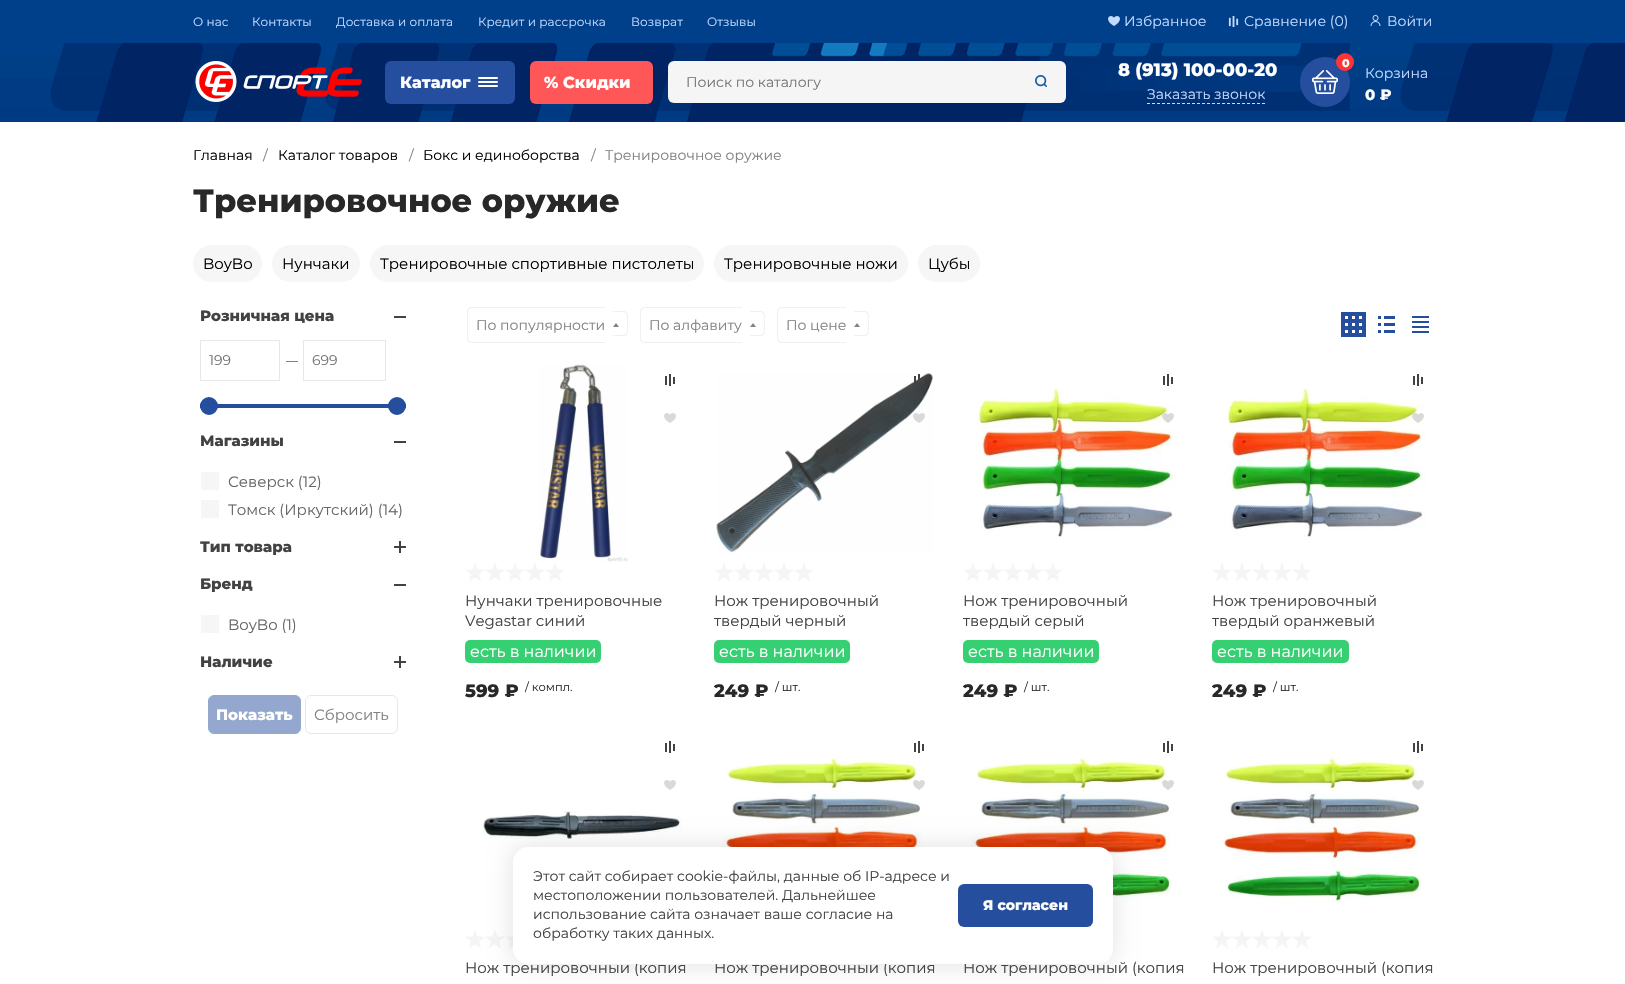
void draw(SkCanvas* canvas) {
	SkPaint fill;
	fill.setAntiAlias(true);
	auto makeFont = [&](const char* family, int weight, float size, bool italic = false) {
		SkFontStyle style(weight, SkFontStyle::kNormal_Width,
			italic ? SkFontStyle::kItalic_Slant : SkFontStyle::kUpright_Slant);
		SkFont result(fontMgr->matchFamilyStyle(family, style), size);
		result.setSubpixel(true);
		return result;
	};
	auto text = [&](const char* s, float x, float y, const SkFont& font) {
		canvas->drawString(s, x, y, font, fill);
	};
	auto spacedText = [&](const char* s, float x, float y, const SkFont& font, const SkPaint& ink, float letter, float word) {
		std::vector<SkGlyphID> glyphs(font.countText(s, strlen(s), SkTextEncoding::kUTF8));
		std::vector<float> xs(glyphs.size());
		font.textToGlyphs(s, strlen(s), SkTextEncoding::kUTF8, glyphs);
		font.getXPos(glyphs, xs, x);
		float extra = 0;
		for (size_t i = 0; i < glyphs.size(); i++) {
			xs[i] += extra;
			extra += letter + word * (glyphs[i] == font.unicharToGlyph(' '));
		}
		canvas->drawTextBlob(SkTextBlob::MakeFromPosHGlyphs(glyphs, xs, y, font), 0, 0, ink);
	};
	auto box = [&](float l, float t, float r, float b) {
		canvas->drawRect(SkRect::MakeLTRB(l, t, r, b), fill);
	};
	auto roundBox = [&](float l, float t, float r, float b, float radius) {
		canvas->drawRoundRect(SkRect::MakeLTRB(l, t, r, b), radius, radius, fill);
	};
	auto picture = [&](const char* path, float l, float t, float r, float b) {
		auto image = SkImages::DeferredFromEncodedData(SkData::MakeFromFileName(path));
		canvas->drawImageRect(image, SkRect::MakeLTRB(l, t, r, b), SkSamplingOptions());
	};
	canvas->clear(0xFFFFFFFF);
	fill.setColor(0xFF003F89);
	box(0, 0, 1625, 43);
	picture("image0.png", 1108, 16, 1120, 26);
	picture("image1.png", 1228, 16, 1239, 27);
	picture("image2.png", 1370, 15, 1381, 26);
	picture("image3.png", 0, 43, 1625, 122);
	picture("image4.png", 195, 61, 362, 102);
	fill.setColor(0xFF264E9E);
	roundBox(385, 61, 515, 104, 6);
	fill.setColor(0xFFFFFFFF);
	roundBox(478, 77, 498, 79, 1);
	roundBox(478, 81, 498, 83, 1);
	roundBox(478, 85, 498, 87, 1);
	fill.setColor(0xFFFF5757);
	roundBox(530, 61, 653, 104, 6);
	fill.setColor(0xFFF5F5F5);
	roundBox(668, 61, 1066, 103, 6);
	picture("image5.png", 1035, 75, 1047, 87);
	fill.setStyle(SkPaint::kStroke_Style);
	fill.setStrokeWidth(1);
	fill.setColor(0xFFC4DAFF);
	fill.setPathEffect(SkDashPathEffect::Make({{3, 2}}, 0));
	canvas->drawPath(SkPathBuilder().moveTo(1147, 103.5f).lineTo(1265, 103.5f).detach(), fill);
	fill.setPathEffect(nullptr);
	fill.setStyle(SkPaint::kFill_Style);
	fill.setColor(0xFF264E9E);
	canvas->drawCircle(1325, 82, 25, fill);
	picture("image6.png", 1312, 70, 1338, 94);
	fill.setColor(0xFFFF3535);
	canvas->drawCircle(1345, 62, 9, fill);
	fill.setColor(0xFFF6F6F6);
	roundBox(193, 245, 262, 282, 18.5f);
	roundBox(272, 245, 360, 282, 18.5f);
	roundBox(370, 245, 704, 282, 18.5f);
	roundBox(714, 245, 908, 282, 18.5f);
	roundBox(918, 245, 980, 282, 18.5f);
	fill.setColor(0xFF424242);
	box(394, 316, 406, 318);
	fill.setStyle(SkPaint::kStroke_Style);
	fill.setColor(0xFFE7E7E7);
	canvas->drawRect(SkRect::MakeLTRB(200.5f, 340.5f, 279.5f, 380.5f), fill);
	fill.setStyle(SkPaint::kFill_Style);
	fill.setColor(0xFF828282);
	box(286, 361, 298, 362);
	fill.setStyle(SkPaint::kStroke_Style);
	fill.setColor(0xFFE7E7E7);
	canvas->drawRect(SkRect::MakeLTRB(303.5f, 340.5f, 385.5f, 380.5f), fill);
	fill.setStyle(SkPaint::kFill_Style);
	fill.setColor(0xFF264E9E);
	box(200, 404, 406, 408);
	canvas->drawCircle(209, 406, 7.5f, fill);
	fill.setStyle(SkPaint::kStroke_Style);
	fill.setStrokeWidth(3);
	canvas->drawCircle(209, 406, 7.5f, fill);
	fill.setStyle(SkPaint::kFill_Style);
	canvas->drawCircle(397, 406, 7.5f, fill);
	fill.setStyle(SkPaint::kStroke_Style);
	canvas->drawCircle(397, 406, 7.5f, fill);
	fill.setStyle(SkPaint::kFill_Style);
	fill.setColor(0xFF424242);
	box(394, 441, 406, 443);
	fill.setColor(0xFFF6F6F6);
	canvas->drawRoundRect(SkRect::MakeLTRB(200.5f, 471.5f, 219.5f, 490.5f), 1.5f, 1.5f, fill);
	fill.setStyle(SkPaint::kStroke_Style);
	fill.setStrokeWidth(1);
	fill.setColor(0xFFFFFFFF);
	canvas->drawRoundRect(SkRect::MakeLTRB(200.5f, 471.5f, 219.5f, 490.5f), 1.5f, 1.5f, fill);
	fill.setStyle(SkPaint::kFill_Style);
	fill.setColor(0xFFF6F6F6);
	canvas->drawRoundRect(SkRect::MakeLTRB(200.5f, 499.5f, 219.5f, 518.5f), 1.5f, 1.5f, fill);
	fill.setStyle(SkPaint::kStroke_Style);
	fill.setColor(0xFFFFFFFF);
	canvas->drawRoundRect(SkRect::MakeLTRB(200.5f, 499.5f, 219.5f, 518.5f), 1.5f, 1.5f, fill);
	fill.setStyle(SkPaint::kFill_Style);
	fill.setColor(0xFF424242);
	box(394, 546, 406, 548);
	box(399, 541, 401, 553);
	box(394, 584, 406, 586);
	fill.setColor(0xFFF6F6F6);
	canvas->drawRoundRect(SkRect::MakeLTRB(200.5f, 614.5f, 219.5f, 633.5f), 1.5f, 1.5f, fill);
	fill.setStyle(SkPaint::kStroke_Style);
	fill.setColor(0xFFFFFFFF);
	canvas->drawRoundRect(SkRect::MakeLTRB(200.5f, 614.5f, 219.5f, 633.5f), 1.5f, 1.5f, fill);
	fill.setStyle(SkPaint::kFill_Style);
	fill.setColor(0xFF424242);
	box(394, 661, 406, 663);
	box(399, 656, 401, 668);
	fill.setColor(0xFF93A7CF);
	canvas->drawRoundRect(SkRect::MakeLTRB(208.5f, 695.5f, 300.5f, 733.5f), 5.5f, 5.5f, fill);
	fill.setStyle(SkPaint::kStroke_Style);
	canvas->drawRoundRect(SkRect::MakeLTRB(208.5f, 695.5f, 300.5f, 733.5f), 5.5f, 5.5f, fill);
	fill.setColor(0xFFE7E7E7);
	canvas->drawRoundRect(SkRect::MakeLTRB(305.5f, 695.5f, 397.5f, 733.5f), 5.5f, 5.5f, fill);
	fill.setStyle(SkPaint::kFill_Style);
	fill.setColor(0xFFEDF1F6);
	canvas->drawPath(SkPathBuilder(SkPathFillType::kEvenOdd).moveTo(472, 307).lineTo(605, 307).lineTo(605, 343).lineTo(472, 343).cubicTo(469, 343, 467, 341, 467, 338).lineTo(467, 312).cubicTo(467, 309, 469, 307, 472, 307).close().moveTo(472, 308).lineTo(605, 308).lineTo(605, 342).lineTo(472, 342).cubicTo(470, 342, 468, 340, 468, 338).lineTo(468, 312).cubicTo(468, 310, 470, 308, 472, 308).close().detach(), fill);
	canvas->drawPath(SkPathBuilder(SkPathFillType::kEvenOdd).moveTo(613, 311).lineTo(623, 311).cubicTo(626, 311, 628, 313, 628, 316).lineTo(628, 331).cubicTo(628, 334, 626, 336, 623, 336).lineTo(613, 336).close().moveTo(613, 312).lineTo(623, 312).cubicTo(625, 312, 627, 314, 627, 316).lineTo(627, 331).cubicTo(627, 333, 625, 335, 623, 335).lineTo(613, 335).close().detach(), fill);
	fill.setColor(0xFF828282);
	canvas->drawPath(SkPathBuilder().moveTo(619, 327).lineTo(613, 327).lineTo(616, 323).close().detach(), fill);
	fill.setColor(0xFFEDF1F6);
	canvas->drawPath(SkPathBuilder(SkPathFillType::kEvenOdd).moveTo(645, 307).lineTo(742, 307).lineTo(742, 343).lineTo(645, 343).cubicTo(642, 343, 640, 341, 640, 338).lineTo(640, 312).cubicTo(640, 309, 642, 307, 645, 307).close().moveTo(645, 308).lineTo(742, 308).lineTo(742, 342).lineTo(645, 342).cubicTo(643, 342, 641, 340, 641, 338).lineTo(641, 312).cubicTo(641, 310, 643, 308, 645, 308).close().detach(), fill);
	canvas->drawPath(SkPathBuilder(SkPathFillType::kEvenOdd).moveTo(750, 311).lineTo(760, 311).cubicTo(763, 311, 765, 313, 765, 316).lineTo(765, 331).cubicTo(765, 334, 763, 336, 760, 336).lineTo(750, 336).close().moveTo(750, 312).lineTo(760, 312).cubicTo(762, 312, 764, 314, 764, 316).lineTo(764, 331).cubicTo(764, 333, 762, 335, 760, 335).lineTo(750, 335).close().detach(), fill);
	fill.setColor(0xFF828282);
	canvas->drawPath(SkPathBuilder().moveTo(756, 327).lineTo(750, 327).lineTo(753, 323).close().detach(), fill);
	fill.setColor(0xFFEDF1F6);
	canvas->drawPath(SkPathBuilder(SkPathFillType::kEvenOdd).moveTo(782, 307).lineTo(846, 307).lineTo(846, 343).lineTo(782, 343).cubicTo(779, 343, 777, 341, 777, 338).lineTo(777, 312).cubicTo(777, 309, 779, 307, 782, 307).close().moveTo(782, 308).lineTo(846, 308).lineTo(846, 342).lineTo(782, 342).cubicTo(780, 342, 778, 340, 778, 338).lineTo(778, 312).cubicTo(778, 310, 780, 308, 782, 308).close().detach(), fill);
	canvas->drawPath(SkPathBuilder(SkPathFillType::kEvenOdd).moveTo(854, 311).lineTo(864, 311).cubicTo(867, 311, 869, 313, 869, 316).lineTo(869, 331).cubicTo(869, 334, 867, 336, 864, 336).lineTo(854, 336).close().moveTo(854, 312).lineTo(864, 312).cubicTo(866, 312, 868, 314, 868, 316).lineTo(868, 331).cubicTo(868, 333, 866, 335, 864, 335).lineTo(854, 335).close().detach(), fill);
	fill.setColor(0xFF828282);
	canvas->drawPath(SkPathBuilder().moveTo(860, 327).lineTo(854, 327).lineTo(857, 323).close().detach(), fill);
	fill.setColor(0xFF264E9E);
	box(1341, 312, 1366, 337);
	picture("image7.png", 1345, 316, 1362, 333);
	picture("image8.png", 1378, 316, 1395, 333);
	picture("image9.png", 1412, 316, 1429, 333);
	picture("image10.png", 539, 364, 628, 562);
	picture("image11.png", 665, 374, 675, 386);
	picture("image12.png", 664, 413, 676, 423);
	picture("image13.png", 466, 563, 564, 581);
	fill.setColor(0xFF36D073);
	roundBox(465, 640, 601, 663, 5);
	picture("image14.png", 716, 373, 933, 553);
	picture("image15.png", 914, 374, 924, 384);
	picture("image16.png", 913, 413, 925, 423);
	picture("image13.png", 715, 563, 813, 581);
	roundBox(714, 640, 850, 663, 5);
	picture("image11.png", 1163, 374, 1173, 386);
	picture("image18.png", 977, 388, 1176, 537);
	picture("image17.png", 1162, 413, 1174, 423);
	picture("image13.png", 964, 563, 1062, 581);
	roundBox(963, 640, 1099, 663, 5);
	picture("image11.png", 1413, 374, 1423, 386);
	picture("image20.png", 1227, 388, 1426, 537);
	picture("image19.png", 1412, 413, 1424, 423);
	picture("image13.png", 1213, 563, 1311, 581);
	roundBox(1212, 640, 1349, 663, 5);
	picture("image11.png", 665, 741, 675, 753);
	picture("image12.png", 664, 780, 676, 790);
	picture("image21.png", 483, 811, 682, 839);
	picture("image22.png", 466, 930, 513, 948);
	picture("image11.png", 914, 741, 924, 753);
	picture("image24.png", 722, 757, 922, 847);
	picture("image23.png", 913, 780, 925, 790);
	picture("image11.png", 1163, 741, 1173, 753);
	picture("image25.png", 971, 757, 1171, 902);
	picture("image23.png", 1162, 780, 1174, 790);
	picture("image11.png", 1413, 741, 1423, 753);
	picture("image26.png", 1220, 757, 1421, 902);
	picture("image23.png", 1412, 780, 1424, 790);
	picture("image13.png", 1213, 930, 1311, 948);
	fill.setColor(0x1F000000);
	fill.setMaskFilter(SkMaskFilter::MakeBlur(kNormal_SkBlurStyle, 12));
	canvas->drawRoundRect(SkRect::MakeLTRB(513, 847, 1113, 964), 15, 15, fill);
	fill.setMaskFilter(nullptr);
	auto font1 = makeFont("Montserrat", 400, 12);
	fill.setColor(0xFFC4DAFF);
	spacedText("О нас", 193, 26, font1, fill, 0.1f, 0);
	spacedText("Контакты", 252, 26, font1, fill, 0.1f, 0);
	spacedText("Доставка и оплата", 336, 26, font1, fill, 0.1f, 0);
	spacedText("Кредит и рассрочка", 478, 26, font1, fill, 0.1f, 0);
	spacedText("Возврат", 631, 26, font1, fill, 0.1f, 0);
	spacedText("Отзывы", 707, 26, font1, fill, 0.1f, 0);
	auto font2 = makeFont("Montserrat", 400, 14);
	text("Избранное", 1124, 26, font2);
	text("Сравнение (0)", 1244, 26, font2);
	text("Войти", 1387, 26, font2);
	auto font3 = makeFont("Montserrat", 800, 16);
	fill.setColor(0xFFFFFFFF);
	text("Каталог", 400, 88, font3);
	text("% Скидки", 544, 88, font3);
	fill.setColor(0xFF757575);
	text("Поиск по каталогу", 686, 87, font2);
	auto font4 = makeFont("Montserrat", 800, 18);
	fill.setColor(0xFFFFFFFF);
	text("8 (913) 100-00-20", 1118, 76, font4);
	fill.setColor(0xFFC4DAFF);
	text("Заказать звонок", 1147, 99, font2);
	auto font5 = makeFont("Montserrat", 800, 11);
	fill.setColor(0xFFFFFFFF);
	text("0", 1342, 67, font5);
	fill.setColor(0xFFC4DAFF);
	text("Корзина", 1365, 78, font2);
	auto font6 = makeFont("Montserrat", 800, 15);
	fill.setColor(0xFFFFFFFF);
	text("0 ₽", 1365, 100, font6);
	fill.setColor(0xFF000000);
	text("Главная", 193, 160, font2);
	fill.setColor(0xFF828282);
	text("/", 263, 160, font2);
	fill.setColor(0xFF000000);
	text("Каталог товаров", 278, 160, font2);
	fill.setColor(0xFF828282);
	text("/", 409, 160, font2);
	fill.setColor(0xFF000000);
	text("Бокс и единоборства", 423, 160, font2);
	fill.setColor(0xFF828282);
	text("/", 591, 160, font2);
	text("Тренировочное оружие", 605, 160, font2);
	auto font7 = makeFont("Montserrat", 800, 32);
	fill.setColor(0xFF282828);
	text("Тренировочное оружие", 193, 212, font7);
	auto font8 = makeFont("Montserrat", 400, 15);
	fill.setColor(0xFF000000);
	text("BoyBo", 203, 269, font8);
	text("Нунчаки", 282, 269, font8);
	text("Тренировочные спортивные пистолеты", 380, 269, font8);
	text("Тренировочные ножи", 724, 269, font8);
	text("Цубы", 928, 269, font8);
	fill.setColor(0xFF424242);
	text("Розничная цена", 200, 321, font6);
	fill.setColor(0xFF757575);
	text("199", 209, 365, font2);
	text("699", 312, 365, font2);
	fill.setColor(0xFF424242);
	text("Магазины", 200, 446, font6);
	fill.setColor(0xFF666666);
	text("Северск (12)", 228, 487, font8);
	text("Томск (Иркутский) (14)", 228, 515, font8);
	fill.setColor(0xFF424242);
	text("Тип товара", 200, 552, font6);
	text("Бренд", 200, 589, font6);
	fill.setColor(0xFF666666);
	text("BoyBo (1)", 228, 630, font8);
	fill.setColor(0xFF424242);
	text("Наличие", 200, 667, font6);
	fill.setColor(0xFFFFFFFF);
	text("Показать", 216, 720, font6);
	fill.setColor(0xFF828282);
	text("Сбросить", 314, 720, font8);
	text("По популярности", 476, 330, font2);
	text("По алфавиту", 649, 330, font2);
	text("По цене", 786, 330, font2);
	fill.setColor(0xFF424242);
	text("Нунчаки тренировочные", 465, 606, font8);
	text("Vegastar синий", 465, 626, font8);
	auto font9 = makeFont("Montserrat", 400, 16);
	fill.setColor(0xFFFFFFFF);
	text("есть в наличии", 470, 657, font9);
	fill.setColor(0xFF282828);
	text("599 ₽", 465, 697, font4);
	auto font10 = makeFont("Montserrat", 400, 11.5f);
	text("/ компл.", 525, 691, font10);
	fill.setColor(0xFF424242);
	text("Нож тренировочный", 714, 606, font8);
	text("твердый черный", 714, 626, font8);
	fill.setColor(0xFFFFFFFF);
	text("есть в наличии", 719, 657, font9);
	fill.setColor(0xFF282828);
	text("249 ₽", 714, 697, font4);
	text("/ шт.", 775, 691, font10);
	fill.setColor(0xFF424242);
	text("Нож тренировочный", 963, 606, font8);
	text("твердый серый", 963, 626, font8);
	fill.setColor(0xFFFFFFFF);
	text("есть в наличии", 968, 657, font9);
	fill.setColor(0xFF282828);
	text("249 ₽", 963, 697, font4);
	text("/ шт.", 1024, 691, font10);
	fill.setColor(0xFF424242);
	text("Нож тренировочный", 1212, 606, font8);
	text("твердый оранжевый", 1212, 626, font8);
	fill.setColor(0xFFFFFFFF);
	text("есть в наличии", 1217, 657, font9);
	fill.setColor(0xFF282828);
	text("249 ₽", 1212, 697, font4);
	text("/ шт.", 1273, 691, font10);
	fill.setColor(0xFF424242);
	text("Нож тренировочный (копия", 465, 973, font8);
	text("Нож тренировочный (копия", 714, 973, font8);
	text("Нож тренировочный (копия", 963, 973, font8);
	text("Нож тренировочный (копия", 1212, 973, font8);
	fill.setColor(0xFFFFFFFF);
	roundBox(513, 847, 1113, 964, 15);
	fill.setColor(0xFF424242);
	text("Этот сайт собирает cookie-файлы, данные об IP-адресе и", 533, 881, font2);
	text("местоположении пользователей. Дальнейшее", 533, 900, font2);
	text("использование сайта означает ваше согласие на", 533, 919, font2);
	text("обработку таких данных.", 533, 938, font2);
	fill.setColor(0xFF264E9E);
	roundBox(958, 884, 1093, 927, 6);
	auto font11 = makeFont("Montserrat", 800, 14);
	fill.setColor(0xFFFFFFFF);
	text("Я согласен", 983, 910, font11);
}
